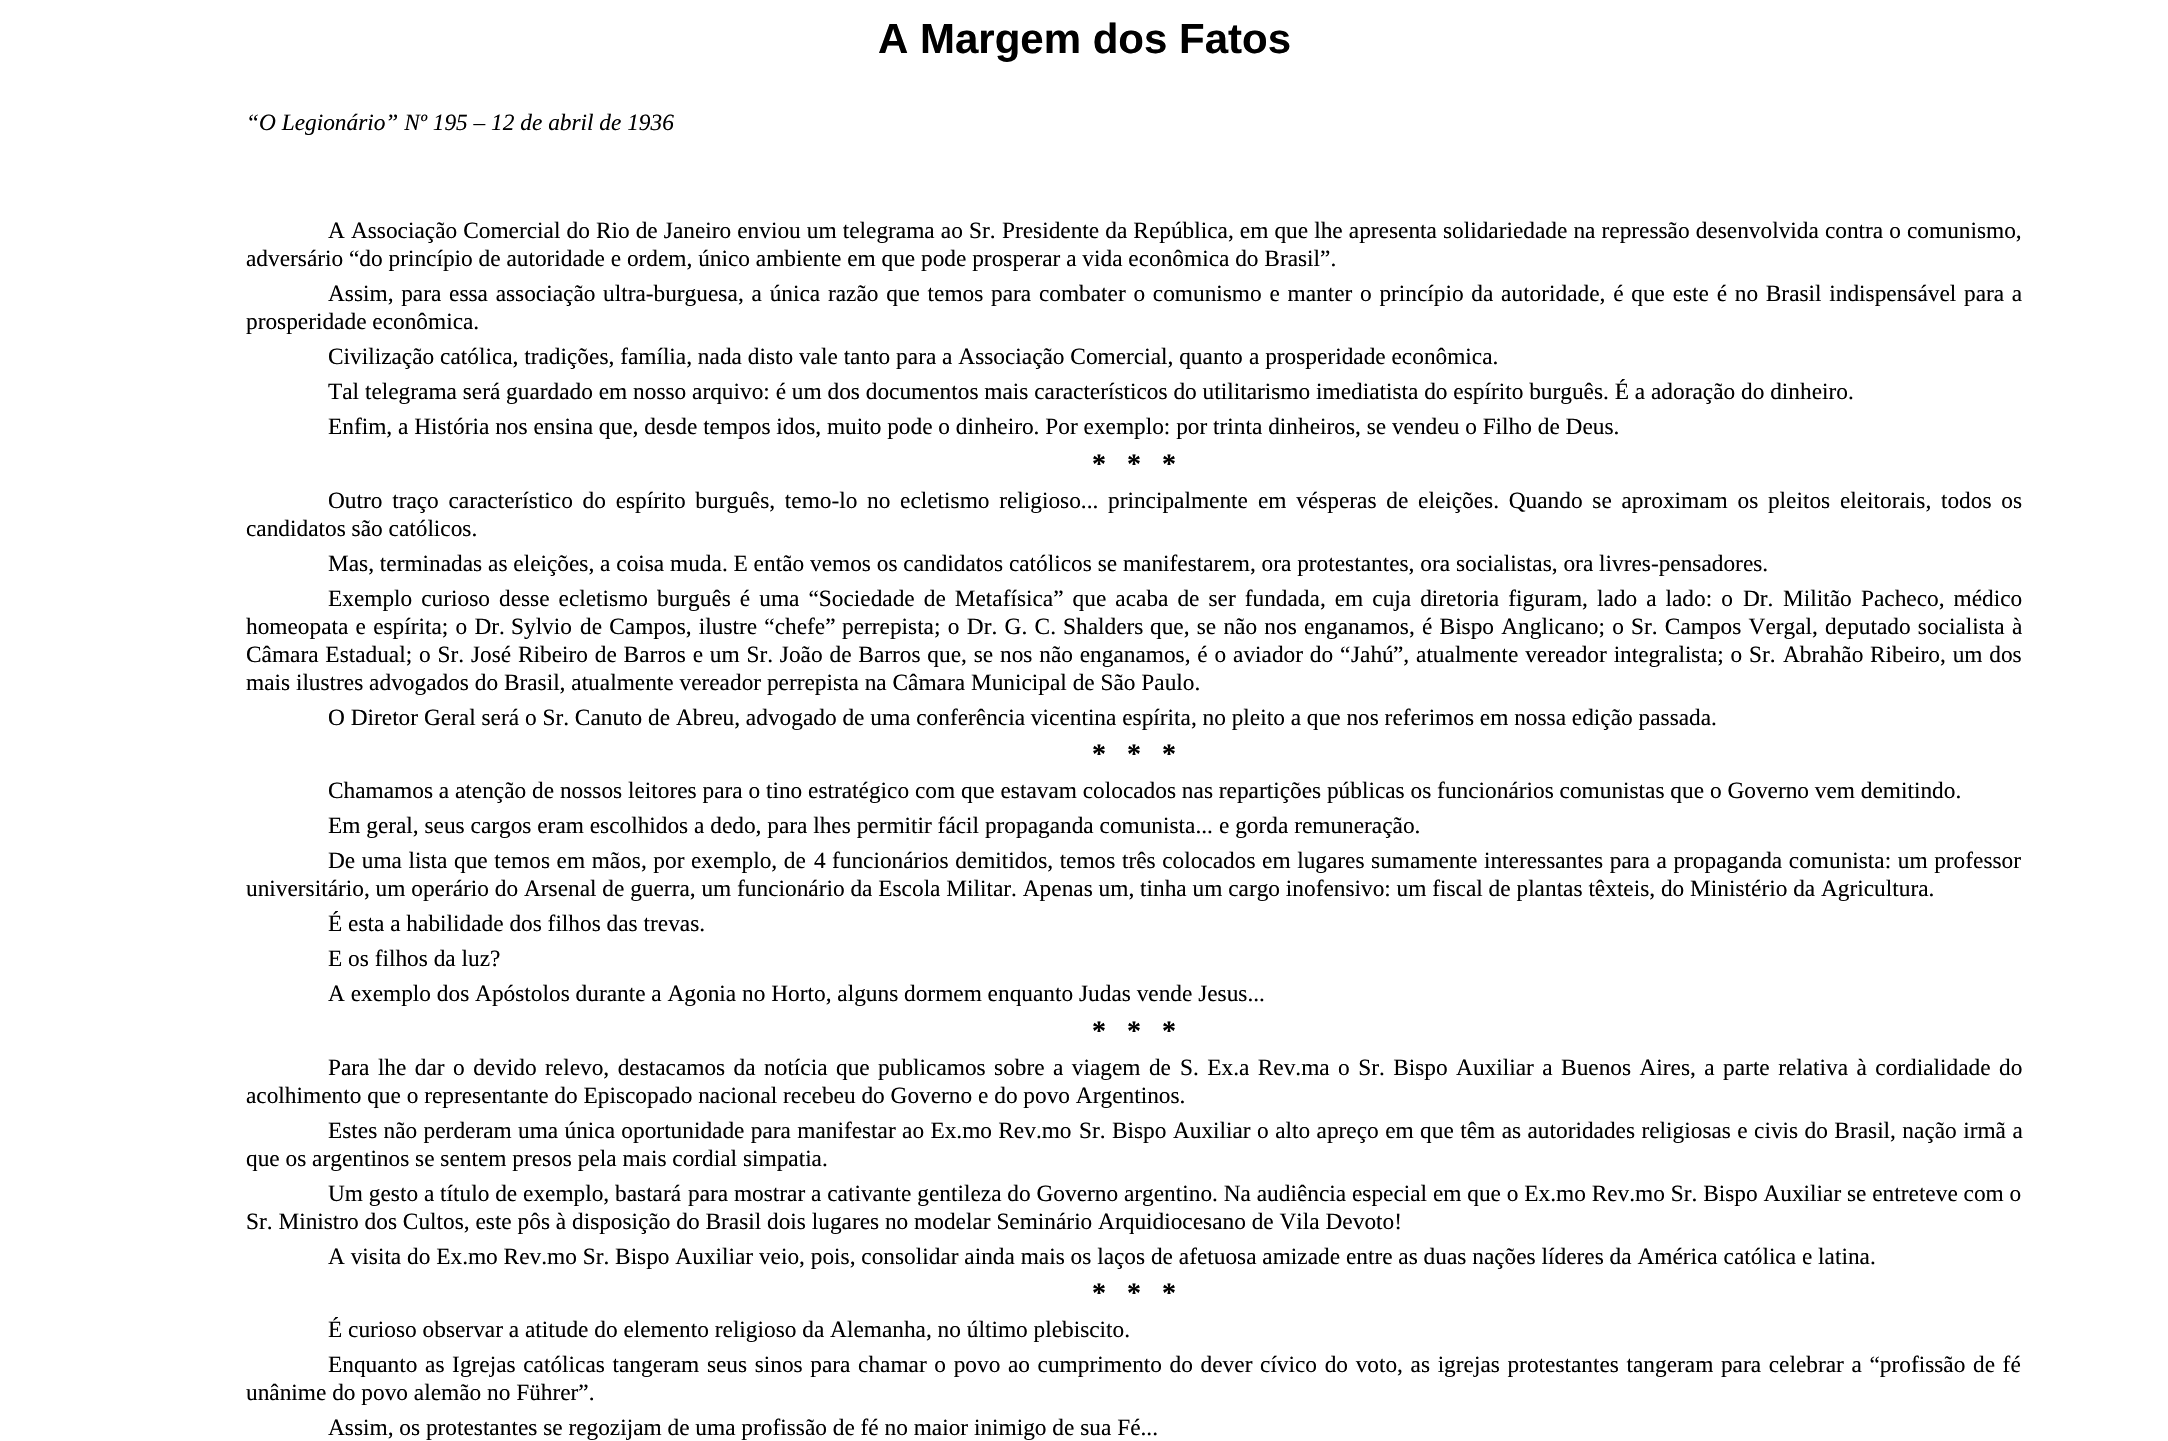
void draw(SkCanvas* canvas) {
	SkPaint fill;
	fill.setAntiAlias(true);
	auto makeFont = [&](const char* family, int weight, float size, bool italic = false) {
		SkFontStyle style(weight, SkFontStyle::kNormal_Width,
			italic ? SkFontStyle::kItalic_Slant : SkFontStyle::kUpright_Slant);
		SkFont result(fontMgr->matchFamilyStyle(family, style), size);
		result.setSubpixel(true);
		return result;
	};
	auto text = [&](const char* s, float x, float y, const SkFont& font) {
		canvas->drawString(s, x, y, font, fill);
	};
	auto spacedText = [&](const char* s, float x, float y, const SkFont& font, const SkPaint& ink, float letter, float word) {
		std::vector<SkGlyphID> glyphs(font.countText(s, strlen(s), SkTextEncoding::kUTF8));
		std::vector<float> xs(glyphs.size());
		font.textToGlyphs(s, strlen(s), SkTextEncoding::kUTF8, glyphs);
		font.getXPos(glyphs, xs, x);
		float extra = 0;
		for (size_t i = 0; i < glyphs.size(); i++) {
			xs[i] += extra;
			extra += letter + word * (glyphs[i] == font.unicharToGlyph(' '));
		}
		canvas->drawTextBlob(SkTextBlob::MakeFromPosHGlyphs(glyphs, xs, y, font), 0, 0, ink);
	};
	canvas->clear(0xFFFFFFFF);
	auto font1 = makeFont("Liberation Sans", 700, 42);
	fill.setColor(0xFF000000);
	text("A Margem dos Fatos", 878, 53, font1);
	auto font2 = makeFont("Liberation Serif", 400, 23.33f, true);
	text("“O Legionário” Nº 195 – 12 de abril de 1936", 246, 130, font2);
	auto font3 = makeFont("Liberation Serif", 400, 23.33f);
	spacedText("A Associação Comercial do Rio de Janeiro enviou um telegrama ao", 328, 238, font3, fill, 0, 0.25f);
	text("Sr.", 969, 238, font3);
	spacedText("Presidente da República, em que lhe apresenta solidariedade na repressão desenvolvida contra o comunismo,", 1002, 238, font3, fill, 0, 0.25f);
	text("adversário “do princípio de autoridade e ordem, único ambiente em que pode prosperar a vida econômica do Brasil”.", 246, 266, font3);
	spacedText("Assim, para essa associação", 328, 301, font3, fill, 0, 1.9f);
	text("ultra-burguesa", 603, 301, font3);
	spacedText(", a única razão que temos para combater o comunismo e manter o princípio da autoridade, é que este é no Brasil indispensável para a", 738, 301, font3, fill, 0, 1.9f);
	text("prosperidade econômica.", 246, 329, font3);
	text("Civilização católica, tradições, família, nada disto vale tanto para a Associação Comercial, quanto", 328, 364, font3);
	text("a prosperidade econômica.", 1249, 364, font3);
	text("Tal telegrama será guardado em nosso arquivo: é um dos documentos mais característicos do utilitarismo", 328, 399, font3);
	text("imediatista do espírito burguês. É a adoração do dinheiro.", 1316, 399, font3);
	text("Enfim, a História nos ensina que, desde tempos idos, muito pode o dinheiro. Por exemplo: por trinta dinheiros, se vendeu o Filho de Deus.", 328, 434, font3);
	auto font4 = makeFont("Liberation Serif", 700, 28);
	text("*", 1092, 473, font4);
	text("*", 1127, 473, font4);
	text("*", 1162, 473, font4);
	spacedText("Outro traço característico do espírito burguês, temo-lo", 328, 508, font3, fill, 0, 3.9f);
	spacedText("no ecletismo religioso...", 867, 508, font3, fill, 0, 3.9f);
	text("principalmente", 1108, 508, font3);
	spacedText("em vésperas de eleições. Quando se aproximam os pleitos eleitorais, todos os", 1258, 508, font3, fill, 0, 3.9f);
	text("candidatos são católicos.", 246, 536, font3);
	text("Mas, terminadas as eleições, a coisa muda. E então vemos os candidatos católicos se manifestarem, ora protestantes, ora socialistas, ora livres-pensadores.", 328, 571, font3);
	spacedText("Exemplo curioso desse ecletismo burguês é uma “Sociedade de Metafísica” que acaba de ser fundada, em cuja diretoria figuram, lado a lado: o", 328, 606, font3, fill, 0, 3.2f);
	text("Dr.", 1743, 606, font3);
	text("Militão", 1783, 606, font3);
	spacedText("Pacheco, médico", 1861, 606, font3, fill, 0, 3.2f);
	spacedText("homeopata e espírita; o Dr.", 246, 634, font3, fill, 0, 1.4f);
	text("Sylvio", 511, 634, font3);
	spacedText("de Campos, ilustre “chefe”", 580, 634, font3, fill, 0, 1.4f);
	text("perrepista", 842, 634, font3);
	spacedText("; o Dr. G. C.", 934, 634, font3, fill, 0, 1.5f);
	text("Shalders", 1063, 634, font3);
	spacedText("que, se não nos enganamos, é Bispo Anglicano; o Sr. Campos Vergal, deputado socialista à", 1150, 634, font3, fill, 0, 1.4f);
	spacedText("Câmara Estadual; o Sr. José Ribeiro de Barros e um Sr. João de Barros que, se nos não enganamos, é o aviador do “", 246, 662, font3, fill, 0, 1);
	text("Jahú", 1351, 662, font3);
	spacedText("”, atualmente vereador integralista; o Sr.", 1393, 662, font3, fill, 0, 1);
	text("Abrahão", 1783, 662, font3);
	spacedText("Ribeiro, um dos", 1870, 662, font3, fill, 0, 1);
	text("mais ilustres advogados do Brasil, atualmente vereador perrepista na Câmara Municipal de São Paulo.", 246, 690, font3);
	text("O Diretor Geral será o Sr. Canuto de Abreu, advogado de uma conferência vicentina espírita, no pleito a que nos referimos em nossa edição passada.", 328, 725, font3);
	text("*", 1092, 763, font4);
	text("*", 1127, 763, font4);
	text("*", 1162, 763, font4);
	text("Chamamos a atenção de nossos leitores para o tino estratégico com que estavam colocados nas repartições públicas os funcionários comunistas que o Governo vem demitindo.", 328, 798, font3);
	text("Em geral, seus cargos eram escolhidos a dedo, para lhes permitir fácil propaganda comunista...", 328, 833, font3);
	text("e gorda remuneração.", 1219, 833, font3);
	spacedText("De uma lista que temos em mãos, por exemplo, de", 328, 868, font3, fill, 0, 0.75f);
	text("4", 814, 868, font3);
	spacedText("funcionários demitidos, temos três colocados em lugares sumamente interessantes para a propaganda comunista: um professor", 832, 868, font3, fill, 0, 0.75f);
	text("universitário, um operário do Arsenal de guerra, um funcionário da Escola Militar. Apenas um, tinha um cargo inofensivo: um fiscal de plantas têxteis, do Ministério da Agricultura.", 246, 896, font3);
	text("É esta a habilidade dos filhos das trevas.", 328, 931, font3);
	text("E os filhos da luz?", 328, 966, font3);
	text("A exemplo dos Apóstolos durante a Agonia no Horto, alguns dormem enquanto Judas vende Jesus...", 328, 1001, font3);
	text("*", 1092, 1040, font4);
	text("*", 1127, 1040, font4);
	text("*", 1162, 1040, font4);
	spacedText("Para lhe dar o devido relevo, destacamos da notícia que publicamos sobre a viagem de", 328, 1075, font3, fill, 0, 2.6f);
	spacedText("S. Ex.a Rev.ma o Sr. Bispo Auxiliar a Buenos Aires, a parte relativa à cordialidade do", 1180, 1075, font3, fill, 0, 2.6f);
	text("acolhimento que o representante do Episcopado nacional recebeu do Governo e do povo Argentinos.", 246, 1103, font3);
	spacedText("Estes não perderam uma única oportunidade para manifestar ao Ex.mo Rev.mo", 328, 1138, font3, fill, 0, 0.5f);
	text("Sr.", 1079, 1138, font3);
	spacedText("Bispo Auxiliar o alto apreço em que têm as autoridades religiosas e civis do Brasil, nação irmã a", 1112, 1138, font3, fill, 0, 0.6f);
	text("que os argentinos se sentem presos pela mais cordial simpatia.", 246, 1166, font3);
	text("Um gesto a título de exemplo, bastará", 328, 1201, font3);
	text("para mostrar a cativante gentileza do Governo argentino. Na audiência especial em que o Ex.mo Rev.mo Sr. Bispo Auxiliar se entreteve com o", 688, 1201, font3);
	text("Sr. Ministro dos Cultos, este pôs à disposição do Brasil dois lugares no modelar Seminário Arquidiocesano de Vila Devoto!", 246, 1229, font3);
	text("A visita do Ex.mo Rev.mo Sr. Bispo Auxiliar veio, pois, consolidar ainda mais os laços de afetuosa amizade entre as duas nações líderes da América católica e latina.", 328, 1264, font3);
	text("*", 1092, 1302, font4);
	text("*", 1127, 1302, font4);
	text("*", 1162, 1302, font4);
	text("É curioso observar a atitude do elemento religioso da Alemanha, no último plebiscito.", 328, 1337, font3);
	spacedText("Enquanto as Igrejas católicas tangeram seus sinos para chamar o povo ao cumprimento do dever cívico do voto, as igrejas protestantes tangeram para celebrar a “profissão de fé", 328, 1372, font3, fill, 0, 1.8f);
	text("unânime do povo alemão no Führer”.", 246, 1400, font3);
	text("Assim, os protestantes se regozijam de uma profissão de fé no maior inimigo de sua Fé...", 328, 1435, font3);
}
